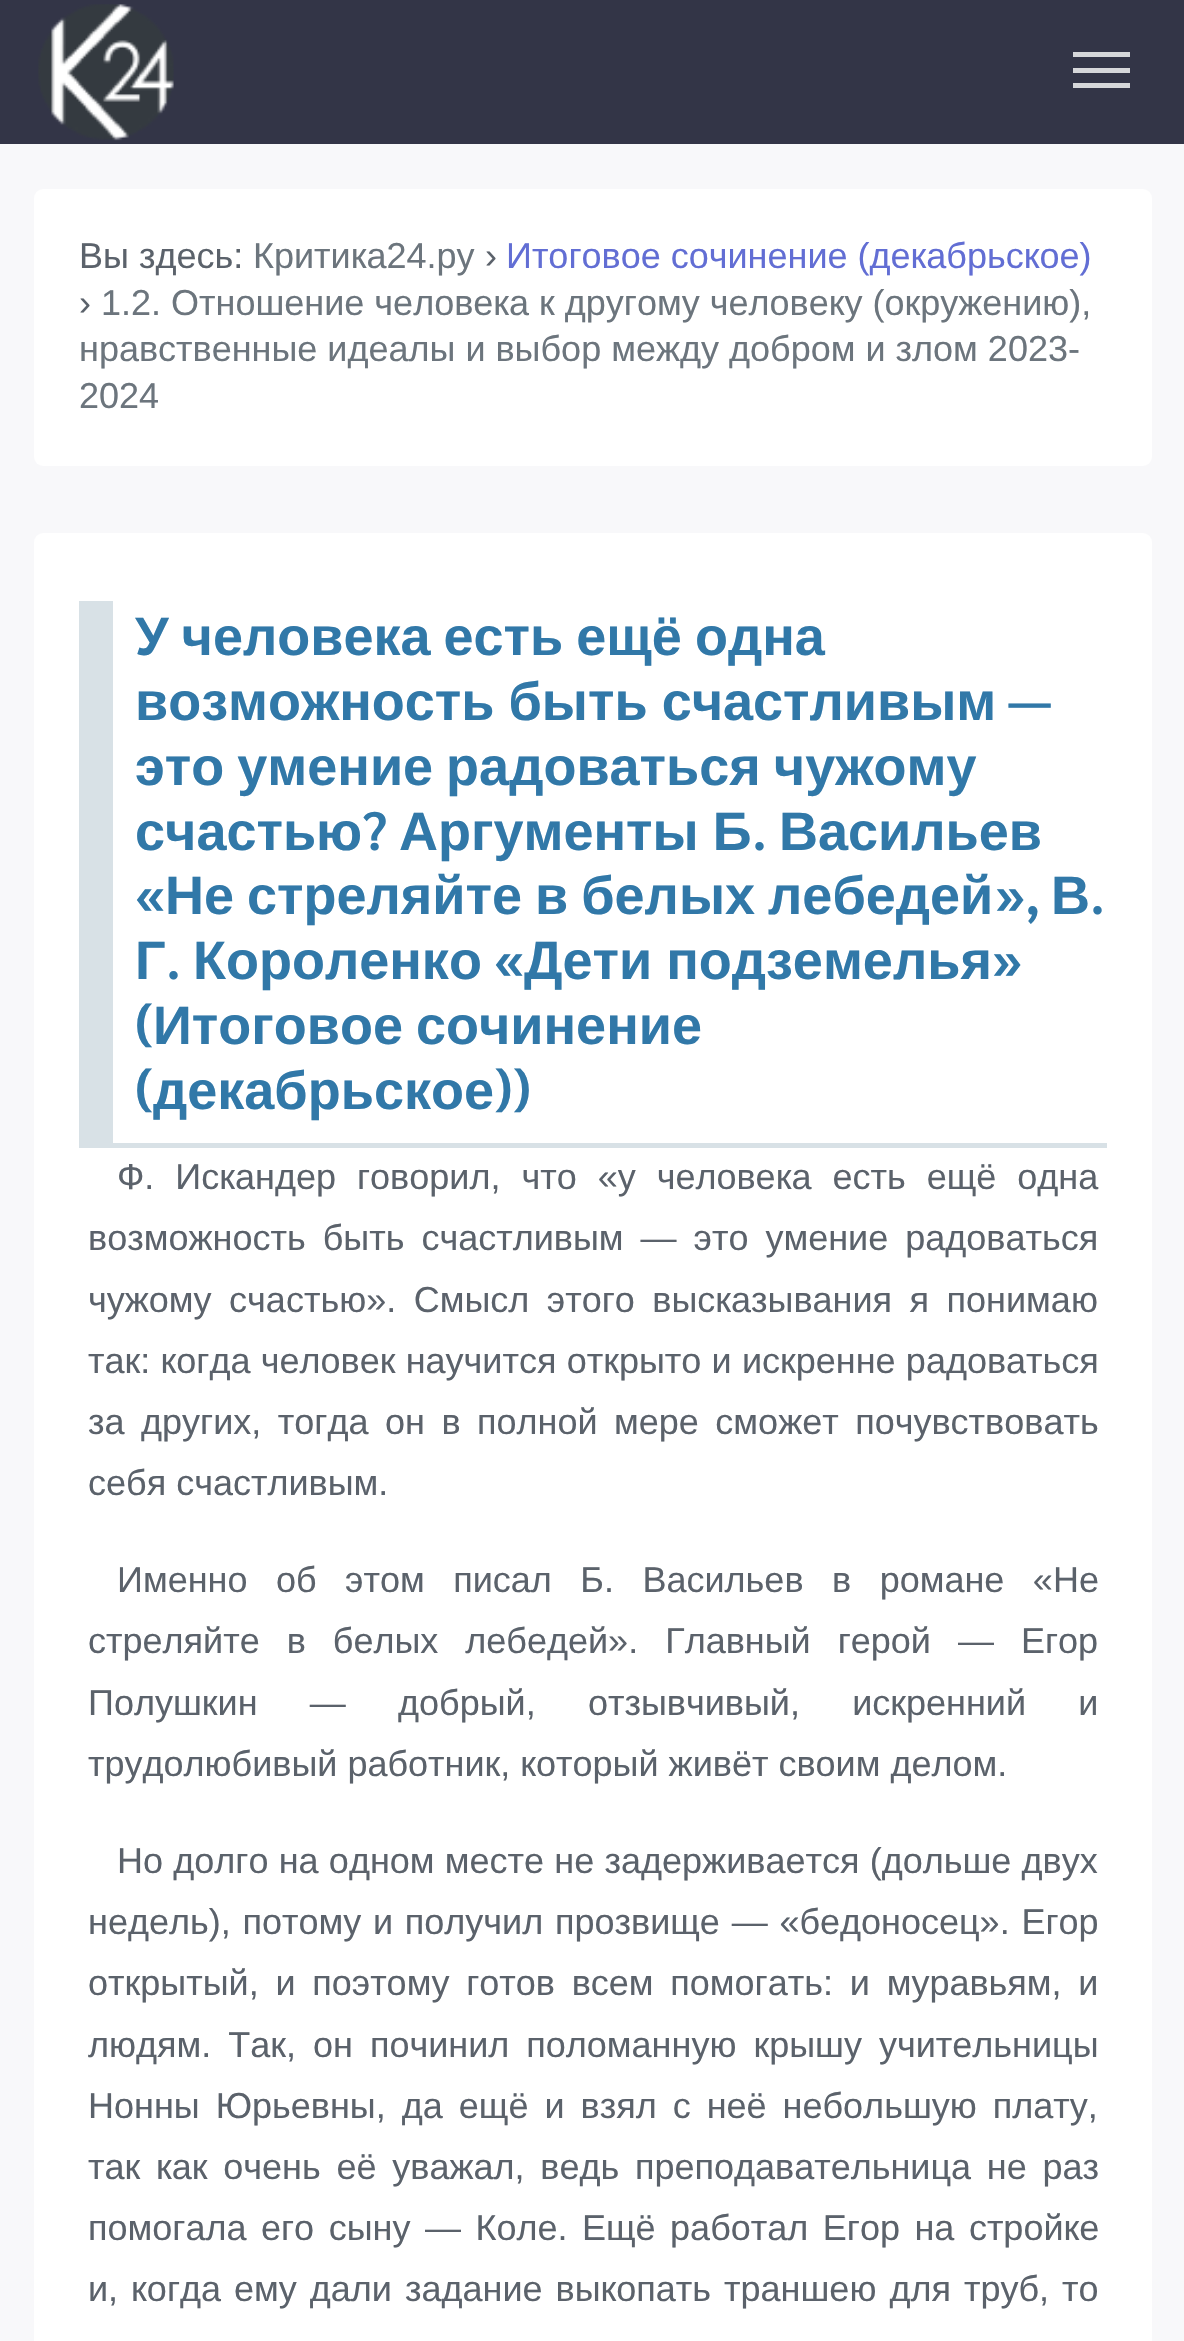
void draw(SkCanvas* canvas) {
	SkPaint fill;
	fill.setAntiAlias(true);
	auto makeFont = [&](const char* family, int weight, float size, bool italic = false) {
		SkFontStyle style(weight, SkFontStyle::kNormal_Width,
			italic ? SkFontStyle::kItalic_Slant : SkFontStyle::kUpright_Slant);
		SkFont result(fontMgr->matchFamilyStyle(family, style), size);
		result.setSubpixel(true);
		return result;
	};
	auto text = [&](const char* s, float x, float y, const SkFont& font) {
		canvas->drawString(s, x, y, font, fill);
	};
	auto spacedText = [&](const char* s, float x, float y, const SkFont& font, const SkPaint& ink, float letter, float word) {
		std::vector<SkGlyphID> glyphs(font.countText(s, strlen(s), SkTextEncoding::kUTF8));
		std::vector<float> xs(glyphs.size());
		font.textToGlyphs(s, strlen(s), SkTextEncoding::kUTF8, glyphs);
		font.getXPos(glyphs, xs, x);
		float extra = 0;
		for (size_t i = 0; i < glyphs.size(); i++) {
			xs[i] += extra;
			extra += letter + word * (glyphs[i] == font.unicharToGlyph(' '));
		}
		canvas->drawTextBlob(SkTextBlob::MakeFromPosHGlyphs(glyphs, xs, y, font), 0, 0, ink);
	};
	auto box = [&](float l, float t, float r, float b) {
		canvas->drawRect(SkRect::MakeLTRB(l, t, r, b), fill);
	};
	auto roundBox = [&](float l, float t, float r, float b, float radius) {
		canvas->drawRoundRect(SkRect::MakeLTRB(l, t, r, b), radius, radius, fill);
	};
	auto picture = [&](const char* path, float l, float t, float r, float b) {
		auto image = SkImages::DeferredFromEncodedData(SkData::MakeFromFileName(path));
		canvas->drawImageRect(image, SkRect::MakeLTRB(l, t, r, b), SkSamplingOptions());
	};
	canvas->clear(0xFFF8F8FA);
	fill.setColor(0xFF333547);
	box(0, 0, 1184, 144);
	picture("image0.png", 38, 4, 174, 141);
	fill.setColor(0xFFD6D7DA);
	box(1073, 52, 1130, 57);
	box(1073, 68, 1130, 73);
	box(1073, 83, 1130, 88);
	fill.setColor(0xFFFFFFFF);
	roundBox(34, 189, 1152, 466, 9);
	roundBox(34, 533, 1152, 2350, 9);
	fill.setColor(0xFFD8E1E6);
	box(113, 1143, 1107, 1148);
	box(79, 601, 113, 1148);
	auto font1 = makeFont("Liberation Sans", 400, 36);
	fill.setColor(0xFF5B626B);
	text("Вы здесь:", 79, 268, font1);
	fill.setColor(0xFF6C757D);
	text("Критика24.ру", 253, 268, font1);
	fill.setColor(0xFF5B626B);
	text("›", 485, 268, font1);
	fill.setColor(0xFF626ED4);
	text("Итоговое сочинение (декабрьское)", 506, 268, font1);
	fill.setColor(0xFF5B626B);
	text("›", 79, 315, font1);
	fill.setColor(0xFF6C757D);
	text("1.2. Отношение человека к другому человеку (окружению),", 101, 315, font1);
	text("нравственные идеалы и выбор между добром и злом 2023-", 79, 361, font1);
	text("2024", 79, 408, font1);
	auto font2 = makeFont("Liberation Sans", 700, 54);
	fill.setColor(0xFF3178A8);
	spacedText("У человека есть ещё одна", 135, 655, font2, fill, 0, -2);
	spacedText("возможность быть счастливым", 135, 720, font2, fill, 0, -1);
	auto font3 = makeFont("Sarabun", 600, 54);
	text("—", 1007, 720, font3);
	spacedText("это умение радоваться чужому", 135, 785, font2, fill, 0, -2);
	text("счастью", 135, 850, font2);
	text("?", 362, 850, font3);
	spacedText("Аргументы Б", 399, 850, font2, fill, 0, -1);
	text(".", 752, 850, font3);
	text("Васильев", 779, 850, font2);
	text("«", 135, 914, font3);
	spacedText("Не стреляйте в белых лебедей", 165, 914, font2, fill, 0, -2);
	text("»,", 995, 914, font3);
	text("В", 1051, 914, font2);
	text(".", 1090, 914, font3);
	text("Г", 135, 979, font2);
	text(".", 166, 979, font3);
	text("Короленко", 193, 979, font2);
	text("«", 494, 979, font3);
	spacedText("Дети подземелья", 524, 979, font2, fill, 0, -1);
	text("»", 992, 979, font3);
	text("(", 135, 1044, font3);
	spacedText("Итоговое сочинение", 153, 1044, font2, fill, 0, -2);
	text("(", 135, 1109, font3);
	text("декабрьское", 153, 1109, font2);
	text("))", 494, 1109, font3);
	fill.setColor(0xFF5B626B);
	spacedText("Ф. Искандер говорил, что «у человека есть ещё одна", 117, 1189, font1, fill, 0, 11);
	spacedText("возможность быть счастливым — это умение радоваться", 88, 1250, font1, fill, 0, 7);
	spacedText("чужому счастью». Смысл этого высказывания я понимаю", 88, 1312, font1, fill, 0, 7.5f);
	spacedText("так: когда человек научится открыто и искренне радоваться", 88, 1373, font1, fill, 0, 0.25f);
	spacedText("за других, тогда он в полной мере сможет почувствовать", 88, 1434, font1, fill, 0, 6.5f);
	text("себя счастливым.", 88, 1495, font1);
	spacedText("Именно об этом писал Б. Васильев в романе «Не", 117, 1592, font1, fill, 0, 18.5f);
	spacedText("стреляйте в белых лебедей». Главный герой — Егор", 88, 1653, font1, fill, 0, 17);
	spacedText("Полушкин — добрый, отзывчивый, искренний и", 88, 1715, font1, fill, 0, 42.25f);
	text("трудолюбивый работник, который живёт своим делом.", 88, 1776, font1);
	spacedText("Но долго на одном месте не задерживается (дольше двух", 117, 1873, font1, fill, 0, 0.25f);
	spacedText("недель), потому и получил прозвище — «бедоносец». Егор", 88, 1934, font1, fill, 0, 1.75f);
	spacedText("открытый, и поэтому готов всем помогать: и муравьям, и", 88, 1995, font1, fill, 0, 6.75f);
	spacedText("людям. Так, он починил поломанную крышу учительницы", 88, 2057, font1, fill, 0, 7);
	spacedText("Нонны Юрьевны, да ещё и взял с неё небольшую плату,", 88, 2118, font1, fill, 0, 6);
	spacedText("так как очень её уважал, ведь преподавательница не раз", 88, 2179, font1, fill, 0, 5.75f);
	spacedText("помогала его сыну — Коле. Ещё работал Егор на стройке", 88, 2240, font1, fill, 0, 4.5f);
	spacedText("и, когда ему дали задание выкопать траншею для труб, то", 88, 2301, font1, fill, 0, 3);
}
